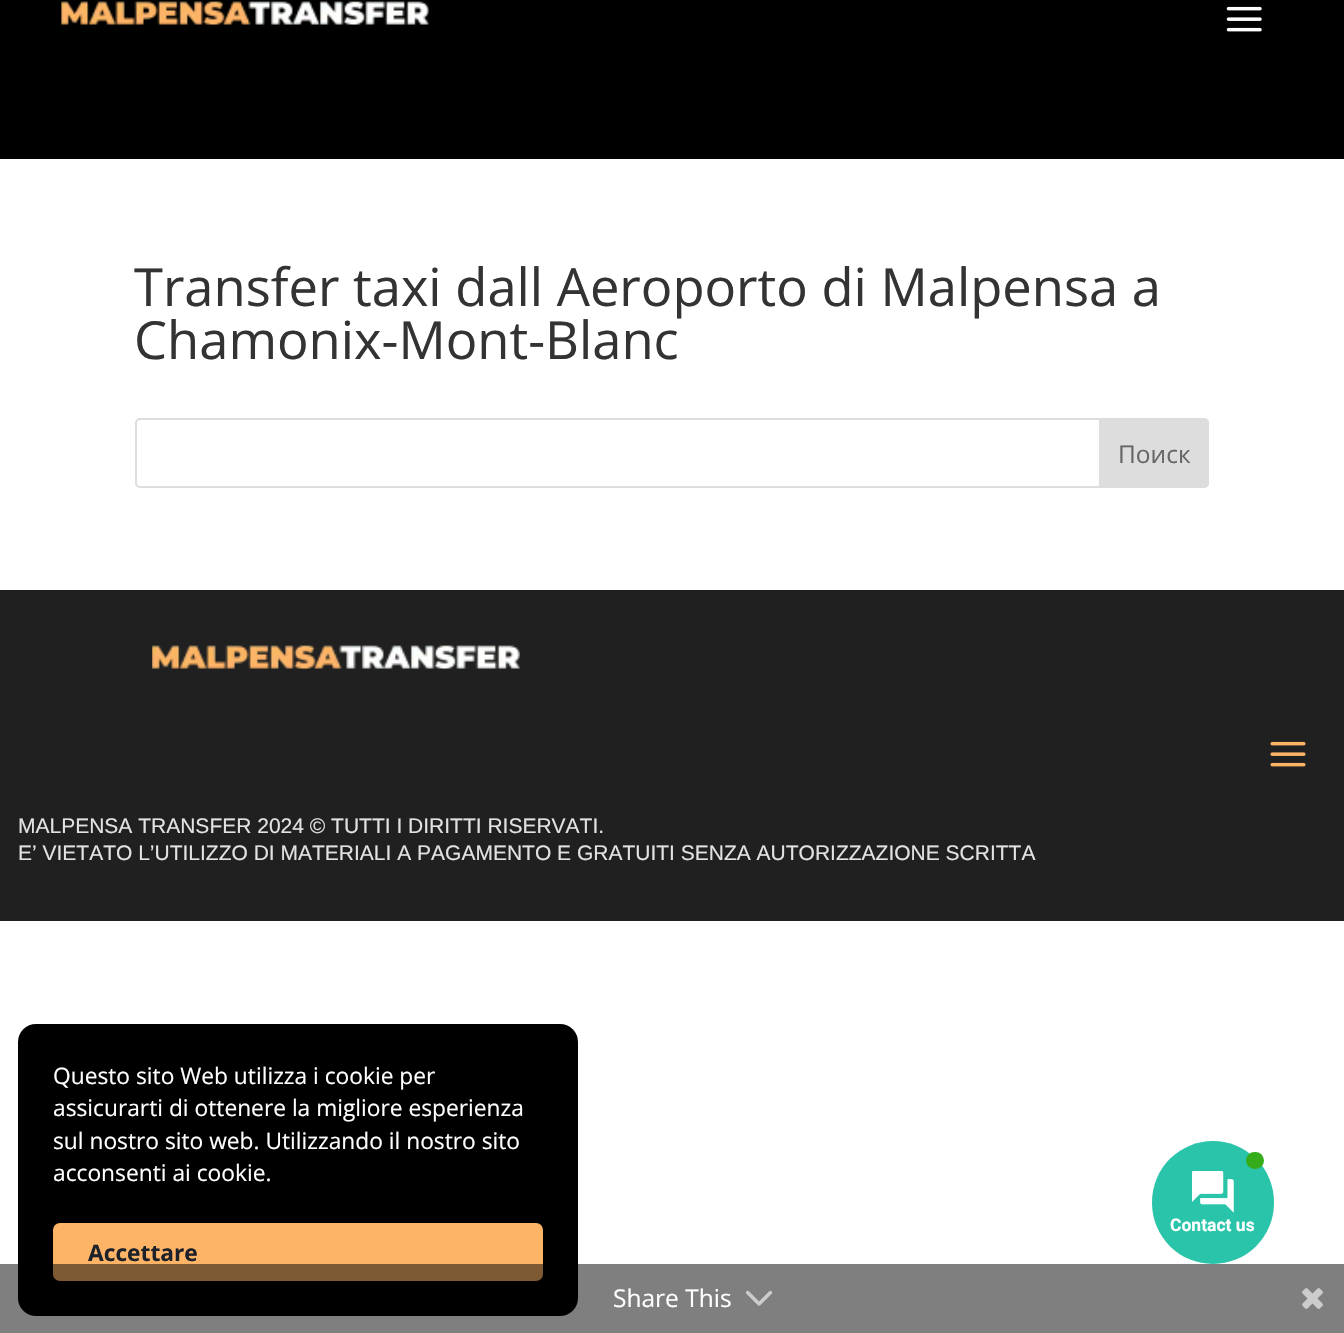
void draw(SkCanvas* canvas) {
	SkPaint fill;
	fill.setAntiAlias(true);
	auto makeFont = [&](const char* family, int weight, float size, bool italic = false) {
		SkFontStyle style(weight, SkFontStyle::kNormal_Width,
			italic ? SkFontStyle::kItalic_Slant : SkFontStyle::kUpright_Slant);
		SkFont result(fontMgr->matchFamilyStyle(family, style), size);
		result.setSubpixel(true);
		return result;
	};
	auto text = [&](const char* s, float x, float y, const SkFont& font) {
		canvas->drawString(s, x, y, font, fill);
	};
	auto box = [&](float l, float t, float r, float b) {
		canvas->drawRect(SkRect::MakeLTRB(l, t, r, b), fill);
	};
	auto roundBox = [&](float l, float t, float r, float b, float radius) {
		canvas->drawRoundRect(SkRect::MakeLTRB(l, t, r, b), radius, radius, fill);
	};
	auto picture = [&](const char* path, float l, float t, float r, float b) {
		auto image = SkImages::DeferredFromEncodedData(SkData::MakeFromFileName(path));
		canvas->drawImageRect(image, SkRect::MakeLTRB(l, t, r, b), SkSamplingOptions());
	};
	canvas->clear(0xFFFFFFFF);
	fill.setColor(0xFF000000);
	box(0, 0, 1344, 159);
	picture("image0.png", 61, 0, 429, 26);
	picture("image1.png", 1226, 6, 1262, 32);
	fill.setStyle(SkPaint::kStroke_Style);
	fill.setStrokeWidth(2);
	fill.setColor(0xFFDDDDDD);
	canvas->drawRoundRect(SkRect::MakeLTRB(136, 419, 1208, 487), 4, 4, fill);
	fill.setStyle(SkPaint::kFill_Style);
	canvas->drawPath(SkPathBuilder().moveTo(1100, 419).lineTo(1204, 419).cubicTo(1206, 419, 1208, 421, 1208, 423).lineTo(1208, 483).cubicTo(1208, 485, 1206, 487, 1204, 487).lineTo(1100, 487).close().detach(), fill);
	fill.setStyle(SkPaint::kStroke_Style);
	canvas->drawPath(SkPathBuilder().moveTo(1100, 419).lineTo(1204, 419).cubicTo(1206, 419, 1208, 421, 1208, 423).lineTo(1208, 483).cubicTo(1208, 485, 1206, 487, 1204, 487).lineTo(1100, 487).close().detach(), fill);
	fill.setStyle(SkPaint::kFill_Style);
	fill.setColor(0xFF202020);
	box(0, 590, 1344, 921);
	picture("image2.png", 152, 644, 520, 670);
	picture("image3.png", 1270, 741, 1306, 767);
	fill.setColor(0xFF000000);
	roundBox(18, 1024, 578, 1316, 18);
	fill.setColor(0xFFFDB467);
	roundBox(53, 1223, 543, 1281, 7);
	fill.setColor(0xFF29C4A9);
	roundBox(1152, 1141, 1274, 1264, 61);
	fill.setColor(0xFF35AC19);
	roundBox(1246, 1152, 1264, 1169, 8.5f);
	picture("image4.png", 1192, 1171, 1234, 1213);
	fill.setColor(0x80000000);
	box(0, 1264, 1344, 1333);
	picture("image5.png", 746, 1290, 773, 1306);
	picture("image6.png", 1302, 1288, 1323, 1309);
	auto font1 = makeFont("Open Sans", 400, 52.5f);
	fill.setColor(0xFF333333);
	text("Transfer taxi dall Aeroporto di Malpensa a", 134, 306, font1);
	text("Chamonix-Mont-Blanc", 134, 359, font1);
	auto font2 = makeFont("Open Sans", 400, 24.5f);
	fill.setColor(0xFF666666);
	text("Поиск", 1118, 463, font2);
	auto font3 = makeFont("Liberation Sans", 400, 21);
	fill.setColor(0xFFE2E2E2);
	text("MALPENSA TRANSFER 2024 © TUTTI I DIRITTI RISERVATI.", 18, 833, font3);
	text("E’ VIETATO L’UTILIZZO DI MATERIALI A PAGAMENTO E GRATUITI SENZA AUTORIZZAZIONE SCRITTA", 18, 860, font3);
	auto font4 = makeFont("Open Sans", 400, 22.75f);
	fill.setColor(0xFFFFFFFF);
	text("Questo sito Web utilizza i cookie per", 53, 1084, font4);
	text("assicurarti di ottenere la migliore esperienza", 53, 1116, font4);
	text("sul nostro sito web. Utilizzando il nostro sito", 53, 1149, font4);
	text("acconsenti ai cookie.", 53, 1181, font4);
	auto font5 = makeFont("Open Sans", 700, 22.75f);
	fill.setColor(0xFF1D2129);
	text("Accettare", 88, 1261, font5);
	auto font6 = makeFont("Roboto", 700, 17.5f);
	fill.setColor(0xFFFFFFFF);
	text("Contact us", 1170, 1231, font6);
	text("Share This", 613, 1307, font2);
}
